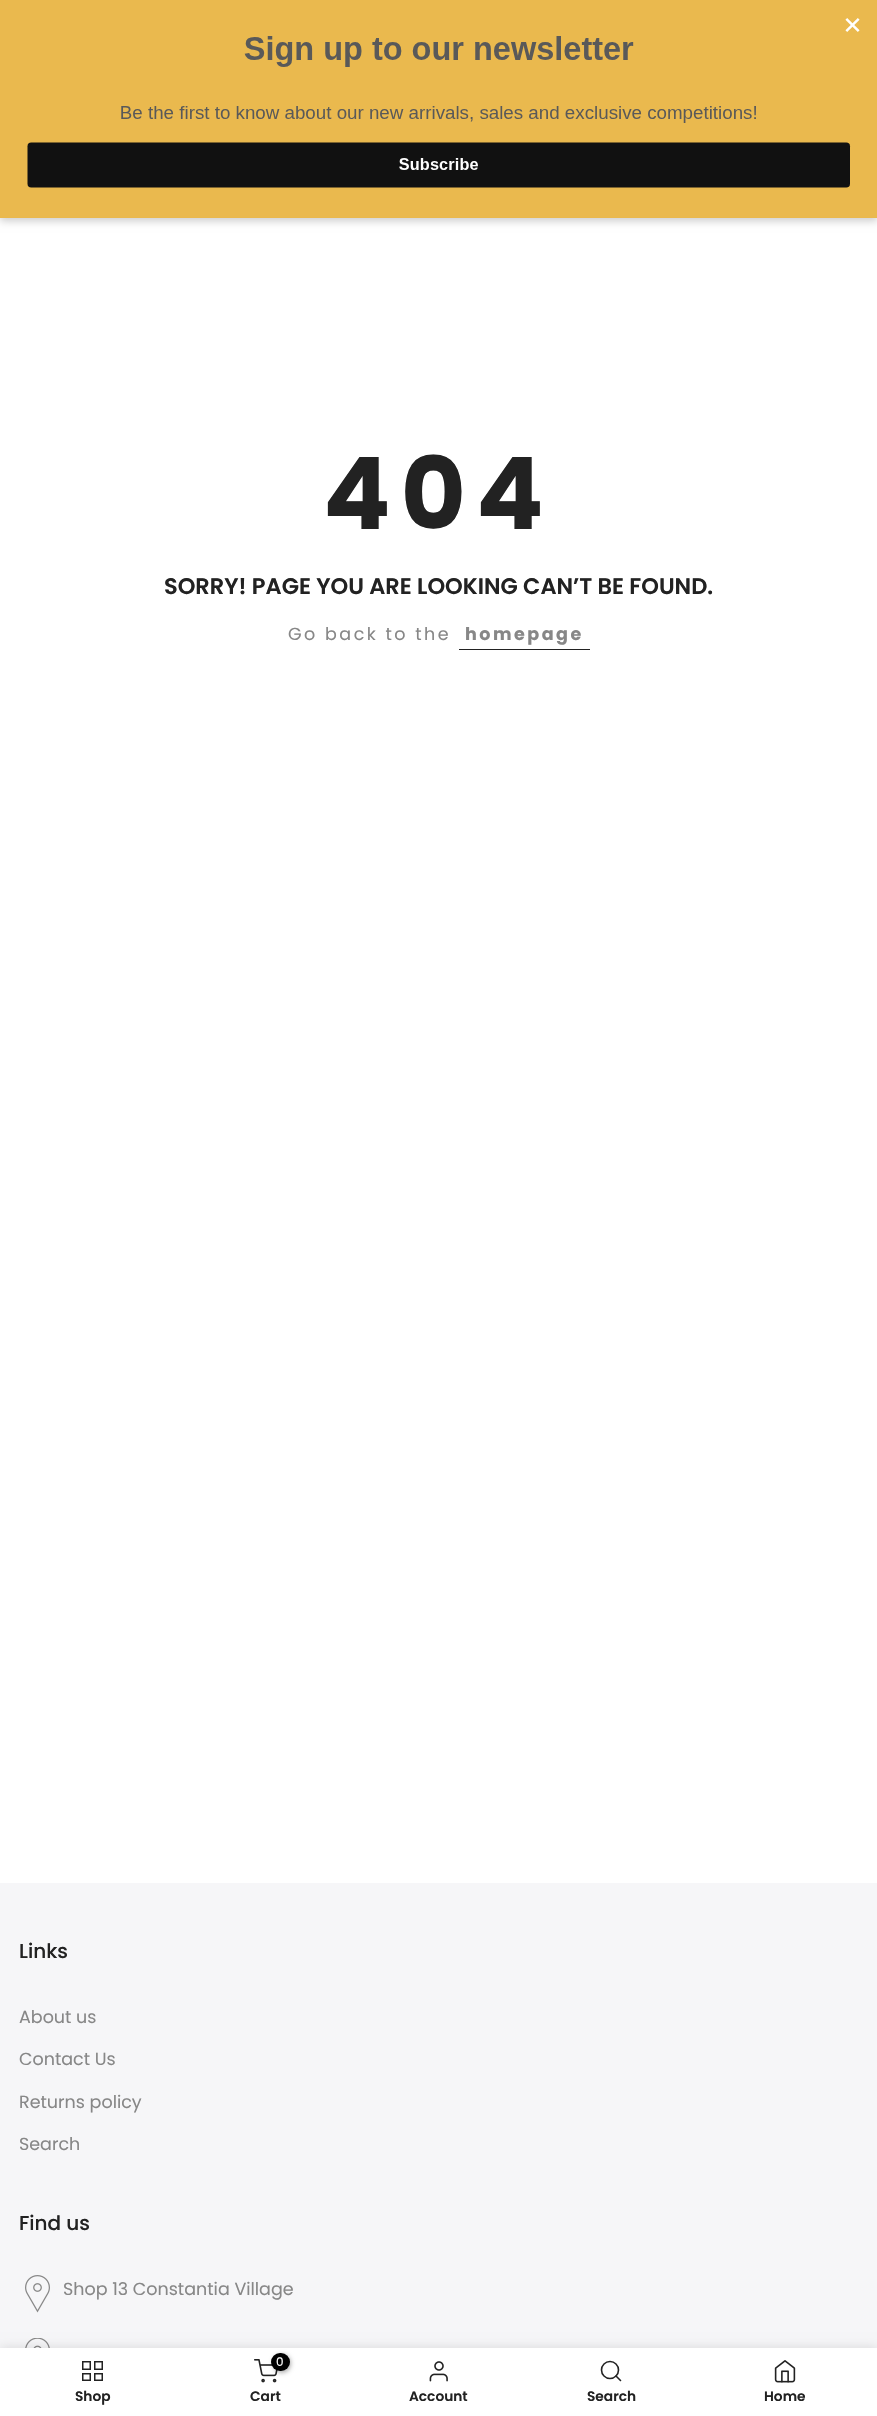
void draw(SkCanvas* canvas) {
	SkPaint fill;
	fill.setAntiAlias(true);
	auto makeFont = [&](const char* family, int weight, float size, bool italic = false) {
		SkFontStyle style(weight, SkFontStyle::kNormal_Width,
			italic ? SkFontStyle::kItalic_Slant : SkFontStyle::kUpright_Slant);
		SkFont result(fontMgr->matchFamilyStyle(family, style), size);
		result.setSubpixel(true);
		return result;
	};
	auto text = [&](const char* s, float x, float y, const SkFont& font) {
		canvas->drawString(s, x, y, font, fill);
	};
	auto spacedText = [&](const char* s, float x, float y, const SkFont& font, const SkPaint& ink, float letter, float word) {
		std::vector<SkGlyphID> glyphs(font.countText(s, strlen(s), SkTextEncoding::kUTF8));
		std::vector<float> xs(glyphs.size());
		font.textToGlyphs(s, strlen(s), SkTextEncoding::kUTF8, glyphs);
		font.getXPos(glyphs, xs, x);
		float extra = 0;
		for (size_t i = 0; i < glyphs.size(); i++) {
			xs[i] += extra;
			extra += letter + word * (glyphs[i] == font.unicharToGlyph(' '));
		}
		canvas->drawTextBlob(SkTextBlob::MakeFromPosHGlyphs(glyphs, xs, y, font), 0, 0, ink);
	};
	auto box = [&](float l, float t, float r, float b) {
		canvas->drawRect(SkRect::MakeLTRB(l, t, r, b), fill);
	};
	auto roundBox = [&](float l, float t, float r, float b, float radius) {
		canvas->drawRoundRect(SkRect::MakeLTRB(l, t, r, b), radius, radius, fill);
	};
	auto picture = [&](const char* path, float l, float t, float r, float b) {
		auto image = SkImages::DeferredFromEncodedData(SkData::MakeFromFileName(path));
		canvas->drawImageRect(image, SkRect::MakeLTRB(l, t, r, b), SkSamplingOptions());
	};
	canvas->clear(0xFFFFFFFF);
	fill.setColor(0x33000000);
	fill.setMaskFilter(SkMaskFilter::MakeBlur(kNormal_SkBlurStyle, 4));
	canvas->drawRect(SkRect::MakeLTRB(0, 4, 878, 221), fill);
	fill.setMaskFilter(nullptr);
	picture("image0.png", 0, 0, 877, 218);
	fill.setColor(0xFF222222);
	box(459, 649, 590, 650);
	fill.setColor(0xFFF6F6F8);
	box(0, 1883, 877, 2348);
	picture("image1.png", 25, 2275, 50, 2313);
	picture("image2.png", 25, 2338, 50, 2348);
	fill.setColor(0x1F000000);
	fill.setMaskFilter(SkMaskFilter::MakeBlur(kNormal_SkBlurStyle, 5.5f));
	canvas->drawRect(SkRect::MakeLTRB(0, 2348, 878, 2416), fill);
	fill.setMaskFilter(nullptr);
	fill.setColor(0xFFFFFFFF);
	box(0, 2348, 877, 2416);
	fill.setStyle(SkPaint::kStroke_Style);
	fill.setStrokeWidth(1.5f);
	fill.setColor(0xFF222222);
	canvas->drawRect(SkRect::MakeLTRB(82.75f, 2361.75f, 90.25f, 2369.25f), fill);
	canvas->drawRect(SkRect::MakeLTRB(94.75f, 2361.75f, 102.25f, 2369.25f), fill);
	canvas->drawRect(SkRect::MakeLTRB(82.75f, 2373.75f, 90.25f, 2380.25f), fill);
	canvas->drawRect(SkRect::MakeLTRB(94.75f, 2373.75f, 102.25f, 2380.25f), fill);
	picture("image3.png", 254, 2359, 278, 2383);
	fill.setStyle(SkPaint::kFill_Style);
	fill.setColor(0x4D000000);
	fill.setMaskFilter(SkMaskFilter::MakeBlur(kNormal_SkBlurStyle, 2));
	canvas->drawRoundRect(SkRect::MakeLTRB(273, 2354, 291, 2373), 9, 9, fill);
	fill.setMaskFilter(nullptr);
	fill.setColor(0xFF000000);
	roundBox(271, 2353, 290, 2371, 9);
	picture("image4.png", 429, 2361, 448, 2382);
	fill.setStyle(SkPaint::kStroke_Style);
	fill.setStrokeWidth(1.6f);
	fill.setColor(0xFF222222);
	canvas->drawCircle(610, 2370, 8.5f, fill);
	fill.setStrokeCap(SkPaint::kRound_Cap);
	fill.setStrokeJoin(SkPaint::kRound_Join);
	canvas->drawPath(SkPathBuilder().moveTo(620.5f, 2380.5f).lineTo(616, 2376).detach(), fill);
	picture("image5.png", 774, 2360, 796, 2383);
	auto font1 = makeFont("Poppins", 700, 100);
	fill.setStyle(SkPaint::kFill_Style);
	spacedText("404", 323, 529, font1, fill, 10, 0);
	auto font2 = makeFont("Poppins", 600, 22.5f);
	text("SORRY! PAGE YOU ARE LOOKING CAN’T BE FOUND.", 164, 594, font2);
	auto font3 = makeFont("Poppins", 400, 17.5f);
	fill.setColor(0xFF878787);
	spacedText("Go back to the", 288, 640, font3, fill, 2.5f, 0);
	auto font4 = makeFont("Poppins", 700, 17.5f);
	spacedText("homepage", 465, 640, font4, fill, 2.5f, 0);
	auto font5 = makeFont("Poppins", 500, 20);
	fill.setColor(0xFF222222);
	text("Links", 19, 1958, font5);
	fill.setColor(0xFF878787);
	text("About us", 19, 2023, font3);
	text("Contact Us", 19, 2065, font3);
	text("Returns policy", 19, 2108, font3);
	text("Search", 19, 2150, font3);
	fill.setColor(0xFF222222);
	text("Find us", 19, 2230, font5);
	fill.setColor(0xFF878787);
	text("Shop 13 Constantia Village", 63, 2295, font3);
	auto font6 = makeFont("Poppins", 600, 13.75f);
	fill.setColor(0xFF222222);
	text("Shop", 75, 2401, font6);
	auto font7 = makeFont("Poppins", 400, 12);
	fill.setColor(0xFFFFFFFF);
	text("0", 276, 2366, font7);
	fill.setColor(0xFF222222);
	text("Cart", 250, 2401, font6);
	text("Account", 409, 2401, font6);
	text("Search", 587, 2401, font6);
	text("Home", 764, 2401, font6);
}
